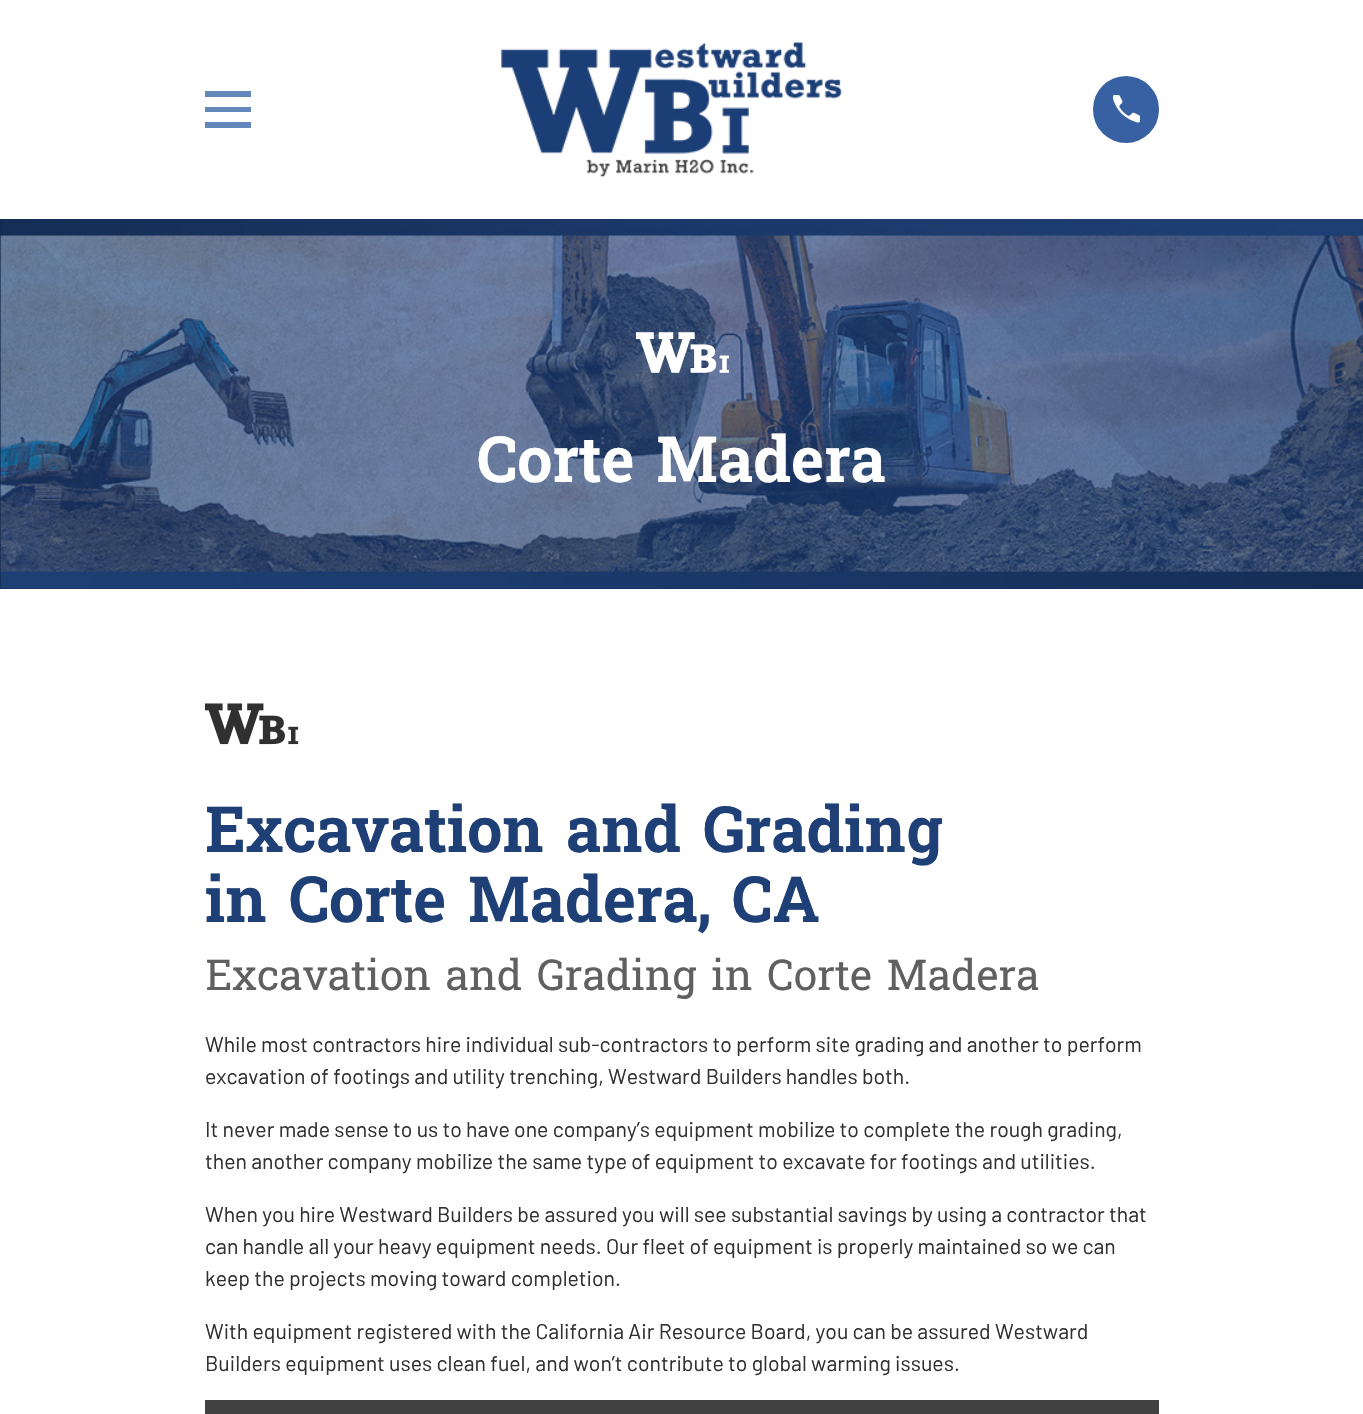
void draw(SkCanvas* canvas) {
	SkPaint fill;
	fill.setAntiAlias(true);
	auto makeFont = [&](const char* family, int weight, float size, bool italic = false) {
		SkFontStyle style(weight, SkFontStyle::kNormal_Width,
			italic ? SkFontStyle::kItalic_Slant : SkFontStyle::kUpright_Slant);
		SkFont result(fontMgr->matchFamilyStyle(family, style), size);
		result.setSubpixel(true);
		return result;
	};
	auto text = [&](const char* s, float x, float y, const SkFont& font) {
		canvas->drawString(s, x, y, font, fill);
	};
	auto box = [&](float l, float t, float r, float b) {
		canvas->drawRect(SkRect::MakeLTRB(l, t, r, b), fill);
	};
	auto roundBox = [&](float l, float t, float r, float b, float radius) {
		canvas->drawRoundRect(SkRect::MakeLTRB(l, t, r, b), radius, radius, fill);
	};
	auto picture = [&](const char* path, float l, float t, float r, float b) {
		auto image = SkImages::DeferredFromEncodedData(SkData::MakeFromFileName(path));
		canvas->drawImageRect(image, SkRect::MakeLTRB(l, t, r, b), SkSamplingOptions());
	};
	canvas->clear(0xFFFFFFFF);
	canvas->save();
	canvas->clipRect(SkRect::MakeLTRB(205, 86, 251, 133));
	fill.setColor(0xFF6487BB);
	canvas->drawPath(SkPathBuilder().moveTo(205, 91).lineTo(205, 97).lineTo(252, 97).lineTo(252, 91).close().moveTo(205, 107).lineTo(205, 112).lineTo(252, 112).lineTo(252, 107).close().moveTo(205, 122).lineTo(205, 128).lineTo(252, 128).lineTo(252, 122).close().detach(), fill);
	canvas->restore();
	picture("image0.png", 501, 42, 842, 177);
	fill.setColor(0xFF3861A3);
	roundBox(1093, 76, 1159, 143, 33);
	picture("image1.png", 1113, 95, 1140, 123);
	fill.setColor(0xFF12274A);
	box(0, 219, 1363, 589);
	picture("image2.png", 0, 219, 1363, 589);
	picture("image3.png", 636, 332, 729, 373);
	picture("image4.png", 205, 703, 299, 745);
	fill.setColor(0xFF414141);
	box(205, 1400, 1159, 1414);
	auto font1 = makeFont("Hanuman", 700, 63.75f);
	fill.setColor(0xFFFFFFFF);
	text("Corte Madera", 477, 482, font1);
	fill.setColor(0xFF1E4076);
	text("Excavation and Grading", 205, 852, font1);
	text("in Corte Madera, CA", 205, 922, font1);
	auto font2 = makeFont("Hanuman", 400, 42.5f);
	fill.setColor(0xFF606060);
	text("Excavation and Grading in Corte Madera", 205, 990, font2);
	auto font3 = makeFont("Barlow", 400, 21.25f);
	fill.setColor(0xFF303030);
	text("While most contractors hire individual sub-contractors to perform site grading and another to perform", 205, 1052, font3);
	text("excavation of footings and utility trenching, Westward Builders handles both.", 205, 1084, font3);
	text("It never made sense to us to have one company’s equipment mobilize to complete the rough grading,", 205, 1137, font3);
	text("then another company mobilize the same type of equipment to excavate for footings and utilities.", 205, 1169, font3);
	text("When you hire Westward Builders be assured you will see substantial savings by using a contractor that", 205, 1222, font3);
	text("can handle all your heavy equipment needs. Our fleet of equipment is properly maintained so we can", 205, 1254, font3);
	text("keep the projects moving toward completion.", 205, 1286, font3);
	text("With equipment registered with the California Air Resource Board, you can be assured Westward", 205, 1339, font3);
	text("Builders equipment uses clean fuel, and won’t contribute to global warming issues.", 205, 1371, font3);
}
